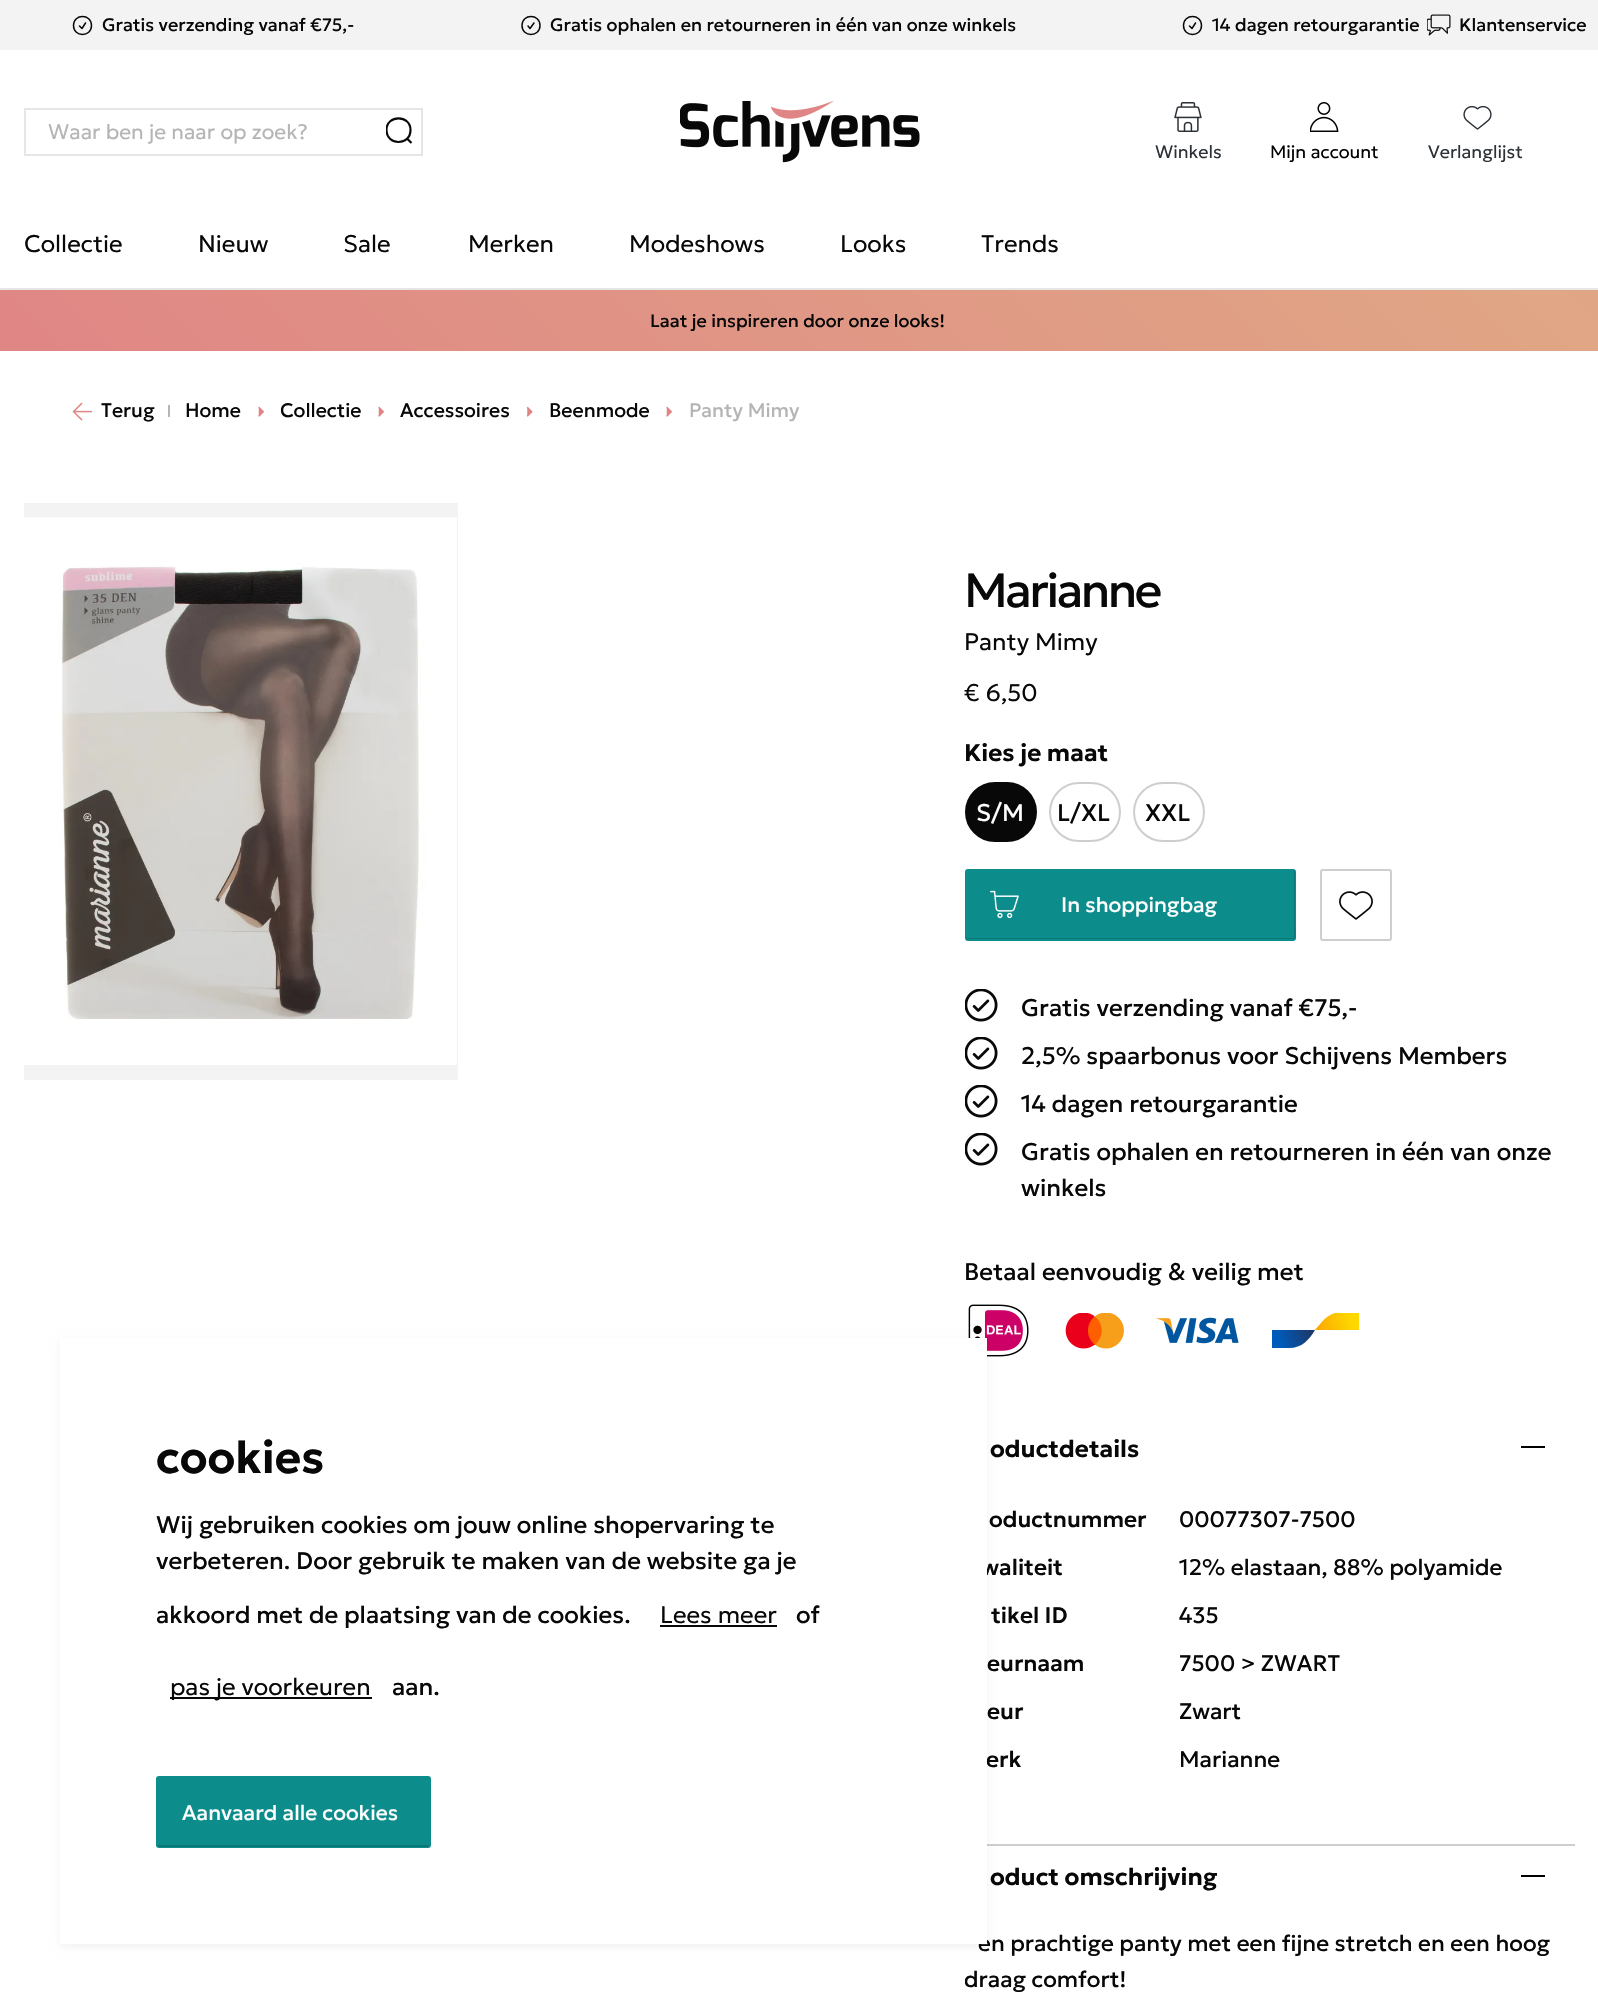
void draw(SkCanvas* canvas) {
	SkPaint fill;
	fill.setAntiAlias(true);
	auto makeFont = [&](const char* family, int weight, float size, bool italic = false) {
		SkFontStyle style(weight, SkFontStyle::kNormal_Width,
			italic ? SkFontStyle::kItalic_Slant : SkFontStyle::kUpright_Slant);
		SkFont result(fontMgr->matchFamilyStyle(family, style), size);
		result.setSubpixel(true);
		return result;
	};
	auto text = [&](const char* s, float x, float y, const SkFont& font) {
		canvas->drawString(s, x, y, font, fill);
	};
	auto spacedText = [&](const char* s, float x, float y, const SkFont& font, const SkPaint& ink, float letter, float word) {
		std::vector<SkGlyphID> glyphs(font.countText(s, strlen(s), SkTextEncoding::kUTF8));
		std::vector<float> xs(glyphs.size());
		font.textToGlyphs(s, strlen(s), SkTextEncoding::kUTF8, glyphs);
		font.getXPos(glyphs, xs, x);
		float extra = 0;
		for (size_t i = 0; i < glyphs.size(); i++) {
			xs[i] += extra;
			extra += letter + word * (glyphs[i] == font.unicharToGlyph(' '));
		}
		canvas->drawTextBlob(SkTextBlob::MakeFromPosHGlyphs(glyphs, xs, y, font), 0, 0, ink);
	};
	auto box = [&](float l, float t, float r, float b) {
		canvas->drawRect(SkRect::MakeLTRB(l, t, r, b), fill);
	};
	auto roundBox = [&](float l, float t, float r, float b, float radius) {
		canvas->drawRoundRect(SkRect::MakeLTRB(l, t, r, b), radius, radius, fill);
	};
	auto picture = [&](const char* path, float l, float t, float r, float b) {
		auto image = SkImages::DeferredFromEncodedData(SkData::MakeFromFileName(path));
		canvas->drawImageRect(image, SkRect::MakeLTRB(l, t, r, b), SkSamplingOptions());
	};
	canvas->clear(0xFFFFFFFF);
	fill.setColor(0xFFF3F3F3);
	box(0, 0, 1598, 50);
	fill.setStyle(SkPaint::kStroke_Style);
	fill.setStrokeWidth(1.5f);
	fill.setStrokeCap(SkPaint::kRound_Cap);
	fill.setStrokeJoin(SkPaint::kRound_Join);
	fill.setColor(0xFF080808);
	canvas->drawPath(SkPathBuilder().moveTo(79.5f, 26).lineTo(82, 28.5f).lineTo(85.5f, 23).moveTo(91.5f, 25.5f).cubicTo(91.5f, 37.5f, 73.5f, 37.5f, 73.5f, 25.5f).cubicTo(73.5f, 13.5f, 91.5f, 13.5f, 91.5f, 25.5f).close().detach(), fill);
	canvas->drawPath(SkPathBuilder().moveTo(528, 26).lineTo(530, 28.5f).lineTo(534, 23).moveTo(540, 25.5f).cubicTo(540, 37.5f, 522, 37.5f, 522, 25.5f).cubicTo(522, 13.5f, 540, 13.5f, 540, 25.5f).close().detach(), fill);
	canvas->drawPath(SkPathBuilder().moveTo(1189.5f, 26).lineTo(1192, 28.5f).lineTo(1195.5f, 23).moveTo(1201.5f, 25.5f).cubicTo(1201.5f, 37.5f, 1183.5f, 37.5f, 1183.5f, 25.5f).cubicTo(1183.5f, 13.5f, 1201.5f, 13.5f, 1201.5f, 25.5f).close().detach(), fill);
	picture("image0.png", 1427, 14, 1451, 36);
	fill.setStrokeWidth(2);
	fill.setStrokeCap(SkPaint::kButt_Cap);
	fill.setStrokeJoin(SkPaint::kMiter_Join);
	fill.setColor(0xFFE6E6E6);
	canvas->drawRect(SkRect::MakeLTRB(25, 109, 422, 155), fill);
	canvas->save();
	canvas->clipRect(SkRect::MakeLTRB(386, 116, 413, 146));
	fill.setStrokeWidth(2.2f);
	fill.setColor(0xFF080808);
	canvas->drawPath(SkPathBuilder().moveTo(406.5f, 138).lineTo(411.5f, 143).moveTo(410.5f, 130).cubicTo(410.5f, 146, 386.5f, 146, 386.5f, 130).cubicTo(386.5f, 114.5f, 410.5f, 114.5f, 410.5f, 130).close().detach(), fill);
	canvas->restore();
	picture("image1.png", 680, 101, 920, 163);
	picture("image2.png", 1174, 102, 1202, 132);
	picture("image3.png", 1310, 102, 1339, 132);
	picture("image4.png", 1463, 105, 1492, 130);
	fill.setStyle(SkPaint::kFill_Style);
	fill.setColor(0xFFE6E6E6);
	box(0, 288, 1598, 290);
	{
		const SkColor colors[] = {0xFFE08585, 0xFFE0A685, 0xFFE08585};
		const float stops[] = {0, 0.5f, 1};
		const SkPoint ends[] = {{769, 1181}, {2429, -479}};
		fill.setShader(SkGradientShader::MakeLinear(ends, colors, stops, 3, SkTileMode::kClamp));
		fill.setAlpha(255);
	}
	box(0, 290, 1598, 351);
	picture("image5.png", 72, 402, 93, 421);
	fill.setShader(nullptr);
	fill.setColor(0xFFB5B5B5);
	box(168, 405, 170, 417);
	picture("image6.png", 258, 406, 264, 417);
	picture("image6.png", 378, 406, 384, 417);
	picture("image7.png", 526, 406, 533, 417);
	picture("image6.png", 666, 406, 672, 417);
	fill.setColor(0xFFF3F3F3);
	box(24, 503, 458, 1080);
	picture("image8.png", 24, 517, 457, 1065);
	fill.setColor(0xFF080808);
	canvas->drawRoundRect(SkRect::MakeLTRB(966, 783, 1036, 841), 29, 29, fill);
	fill.setStyle(SkPaint::kStroke_Style);
	fill.setStrokeWidth(2);
	canvas->drawRoundRect(SkRect::MakeLTRB(966, 783, 1036, 841), 29, 29, fill);
	fill.setColor(0xFFCECECE);
	canvas->drawRoundRect(SkRect::MakeLTRB(1050, 783, 1120, 841), 29, 29, fill);
	canvas->drawRoundRect(SkRect::MakeLTRB(1134, 783, 1204, 841), 29, 29, fill);
	fill.setStyle(SkPaint::kFill_Style);
	fill.setColor(0xFF0D8C8C);
	roundBox(965, 869, 1296, 941, 3);
	fill.setColor(0xFF0B7777);
	canvas->drawPath(SkPathBuilder().moveTo(966, 936).cubicTo(966, 937, 966, 939, 968, 939).lineTo(1294, 939).cubicTo(1297, 939, 1295, 929, 1295, 926).lineTo(1295, 872).lineTo(1294, 870).lineTo(1294, 936).cubicTo(1294, 937, 1294, 938, 1293, 938).lineTo(968, 938).cubicTo(967, 938, 966, 937, 966, 936).close().detach(), fill);
	picture("image9.png", 990, 890, 1019, 919);
	fill.setStyle(SkPaint::kStroke_Style);
	fill.setColor(0xFFCECECE);
	canvas->drawRoundRect(SkRect::MakeLTRB(1321, 870, 1391, 940), 2, 2, fill);
	picture("image10.png", 1339, 891, 1373, 920);
	picture("image11.png", 965, 989, 998, 1022);
	picture("image11.png", 965, 1037, 998, 1070);
	picture("image11.png", 965, 1085, 998, 1118);
	picture("image11.png", 965, 1133, 998, 1166);
	picture("image12.png", 968, 1304, 1029, 1357);
	picture("image13.png", 1065, 1313, 1124, 1349);
	picture("image14.png", 1157, 1317, 1239, 1344);
	fill.setStyle(SkPaint::kFill_Style);
	{
		const SkColor colors[] = {0xFF005AB9, 0xFF1E3764};
		const float stops[] = {0, 1};
		const SkPoint ends[] = {{1280, 1340}, {1313, 1329}};
		fill.setShader(SkGradientShader::MakeLinear(ends, colors, stops, 2, SkTileMode::kClamp));
		fill.setAlpha(255);
	}
	canvas->drawPath(SkPathBuilder().moveTo(1289, 1348).cubicTo(1302, 1348, 1309, 1340, 1315, 1330).lineTo(1272, 1330).lineTo(1272, 1348).close().detach(), fill);
	canvas->save();
	canvas->clipRect(SkRect::MakeLTRB(1271, 1313, 1359, 1349));
	{
		const SkColor colors[] = {0xFFFBA900, 0xFFFFD800};
		const float stops[] = {0, 1};
		const SkPoint ends[] = {{1318, 1332}, {1352, 1321}};
		fill.setShader(SkGradientShader::MakeLinear(ends, colors, stops, 2, SkTileMode::kClamp));
		fill.setAlpha(255);
	}
	canvas->drawPath(SkPathBuilder().moveTo(1342, 1312).cubicTo(1328, 1312, 1322, 1322, 1315, 1330).lineTo(1359, 1330).lineTo(1359, 1312).close().detach(), fill);
	canvas->restore();
	fill.setShader(nullptr);
	fill.setColor(0xFF000000);
	box(1521, 1446, 1545, 1448);
	fill.setColor(0xFFCECECE);
	box(987, 1844, 1575, 1846);
	fill.setColor(0xFF000000);
	box(1521, 1875, 1545, 1877);
	fill.setColor(0x0D000000);
	fill.setMaskFilter(SkMaskFilter::MakeBlur(kNormal_SkBlurStyle, 4));
	canvas->drawRect(SkRect::MakeLTRB(60, 1341, 987, 1947), fill);
	fill.setMaskFilter(nullptr);
	auto font1 = makeFont("Geologica", 400, 18);
	fill.setColor(0xFF080808);
	text("Gratis verzending vanaf €75,-", 102, 31, font1);
	text("Gratis ophalen en retourneren in één van onze winkels", 550, 31, font1);
	text("14 dagen retourgarantie", 1212, 31, font1);
	text("Klantenservice", 1459, 31, font1);
	auto font2 = makeFont("Geologica", 300, 21);
	fill.setColor(0xFFB5B5B5);
	text("Waar ben je naar op zoek?", 48, 139, font2);
	auto font3 = makeFont("Geologica", 300, 18);
	fill.setColor(0xFF2B3136);
	text("Winkels", 1155, 158, font3);
	fill.setColor(0xFF000000);
	text("Mijn account", 1270, 158, font3);
	fill.setColor(0xFF2B3136);
	text("Verlanglijst", 1428, 158, font3);
	auto font4 = makeFont("Geologica", 300, 24);
	fill.setColor(0xFF080808);
	text("Collectie", 24, 252, font4);
	text("Nieuw", 198, 252, font4);
	text("Sale", 343, 252, font4);
	text("Merken", 468, 252, font4);
	text("Modeshows", 629, 252, font4);
	text("Looks", 840, 252, font4);
	text("Trends", 981, 252, font4);
	text("Laat je inspireren door onze looks!", 650, 327, font1);
	auto font5 = makeFont("Geologica", 400, 19.5f);
	text("Terug", 101, 417, font5);
	text("Home", 185, 417, font5);
	text("Collectie", 280, 417, font5);
	text("Accessoires", 400, 417, font5);
	text("Beenmode", 549, 417, font5);
	fill.setColor(0xFFB5B5B5);
	text("Panty Mimy", 689, 417, font5);
	auto font6 = makeFont("Geologica", 400, 48);
	fill.setColor(0xFF080808);
	spacedText("Marianne", 964, 607, font6, fill, -2.5f, 0);
	text("Panty Mimy", 964, 650, font4);
	text("€ 6,50", 964, 701, font4);
	auto font7 = makeFont("Geologica", 600, 24);
	text("Kies je maat", 964, 761, font7);
	auto font8 = makeFont("Geologica", 400, 24);
	fill.setColor(0xFFFFFFFF);
	text("S/M", 976, 821, font8);
	fill.setColor(0xFF080808);
	text("L/XL", 1057, 821, font8);
	text("XXL", 1145, 821, font8);
	auto font9 = makeFont("Geologica", 400, 21);
	fill.setColor(0xFFFFFFFF);
	text("In shoppingbag", 1061, 912, font9);
	fill.setColor(0xFF080808);
	text("Gratis verzending vanaf €75,-", 1021, 1016, font8);
	text("2,5% spaarbonus voor Schijvens Members", 1021, 1064, font8);
	text("14 dagen retourgarantie", 1021, 1112, font8);
	text("Gratis ophalen en retourneren in één van onze", 1021, 1160, font8);
	text("winkels", 1021, 1196, font8);
	text("Betaal eenvoudig & veilig met", 964, 1280, font8);
	text("oductdetails", 990, 1457, font7);
	auto font10 = makeFont("Geologica", 500, 22.5f);
	text("oductnummer", 989, 1527, font10);
	auto font11 = makeFont("Geologica", 400, 22.5f);
	text("00077307-7500", 1179, 1527, font11);
	text("waliteit", 981, 1575, font10);
	text("12% elastaan, 88% polyamide", 1179, 1575, font11);
	text("tikel ID", 991, 1623, font10);
	text("435", 1179, 1623, font11);
	text("eurnaam", 987, 1671, font10);
	text("7500 > ZWART", 1179, 1671, font11);
	text("eur", 987, 1719, font10);
	text("Zwart", 1179, 1719, font11);
	text("erk", 986, 1767, font10);
	text("Marianne", 1179, 1767, font11);
	text("oduct omschrijving", 990, 1885, font7);
	text("en prachtige panty met een fijne stretch en een hoog", 978, 1951, font11);
	canvas->save();
	canvas->clipRect(SkRect::MakeLTRB(965, 1910, 1575, 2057));
	text("draag comfort!", 964, 1987, font11);
	canvas->restore();
	fill.setColor(0xFFFFFFFF);
	box(60, 1338, 987, 1944);
	auto font12 = makeFont("Geologica", 600, 45);
	fill.setColor(0xFF080808);
	text("cookies", 156, 1473, font12);
	text("Wij gebruiken cookies om jouw online shopervaring te", 156, 1533, font8);
	text("verbeteren. Door gebruik te maken van de website ga je", 156, 1569, font8);
	text("akkoord met de plaatsing van de cookies.", 156, 1623, font8);
	text("Lees meer", 660, 1623, font4);
	box(660, 1625, 777, 1627);
	text("of", 796, 1623, font8);
	box(170, 1697, 372, 1699);
	text("pas je voorkeuren", 170, 1695, font4);
	text("aan.", 392, 1695, font8);
	fill.setColor(0xFF0D8C8C);
	roundBox(156, 1776, 431, 1848, 3);
	fill.setColor(0xFF0B7777);
	canvas->drawPath(SkPathBuilder().moveTo(158, 1844).lineTo(158, 1846).cubicTo(158, 1846, 159, 1847, 160, 1847).lineTo(428, 1847).cubicTo(428, 1847, 429, 1846, 429, 1846).lineTo(429, 1844).lineTo(428, 1845).lineTo(159, 1845).close().detach(), fill);
	fill.setColor(0xFFFFFFFF);
	text("Aanvaard alle cookies", 182, 1820, font9);
}
